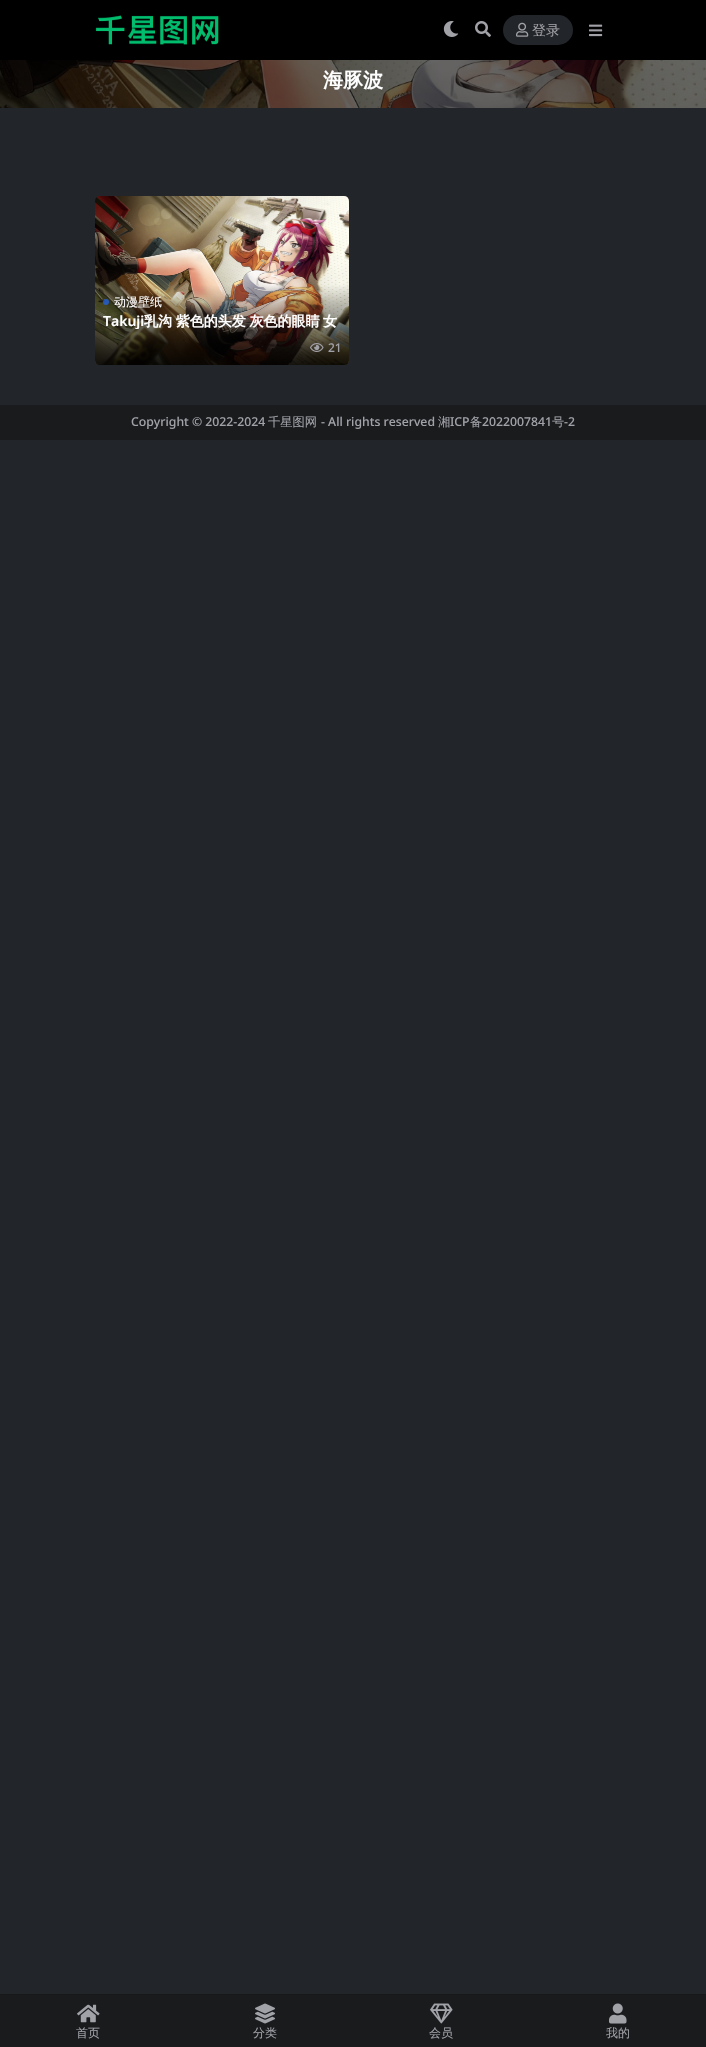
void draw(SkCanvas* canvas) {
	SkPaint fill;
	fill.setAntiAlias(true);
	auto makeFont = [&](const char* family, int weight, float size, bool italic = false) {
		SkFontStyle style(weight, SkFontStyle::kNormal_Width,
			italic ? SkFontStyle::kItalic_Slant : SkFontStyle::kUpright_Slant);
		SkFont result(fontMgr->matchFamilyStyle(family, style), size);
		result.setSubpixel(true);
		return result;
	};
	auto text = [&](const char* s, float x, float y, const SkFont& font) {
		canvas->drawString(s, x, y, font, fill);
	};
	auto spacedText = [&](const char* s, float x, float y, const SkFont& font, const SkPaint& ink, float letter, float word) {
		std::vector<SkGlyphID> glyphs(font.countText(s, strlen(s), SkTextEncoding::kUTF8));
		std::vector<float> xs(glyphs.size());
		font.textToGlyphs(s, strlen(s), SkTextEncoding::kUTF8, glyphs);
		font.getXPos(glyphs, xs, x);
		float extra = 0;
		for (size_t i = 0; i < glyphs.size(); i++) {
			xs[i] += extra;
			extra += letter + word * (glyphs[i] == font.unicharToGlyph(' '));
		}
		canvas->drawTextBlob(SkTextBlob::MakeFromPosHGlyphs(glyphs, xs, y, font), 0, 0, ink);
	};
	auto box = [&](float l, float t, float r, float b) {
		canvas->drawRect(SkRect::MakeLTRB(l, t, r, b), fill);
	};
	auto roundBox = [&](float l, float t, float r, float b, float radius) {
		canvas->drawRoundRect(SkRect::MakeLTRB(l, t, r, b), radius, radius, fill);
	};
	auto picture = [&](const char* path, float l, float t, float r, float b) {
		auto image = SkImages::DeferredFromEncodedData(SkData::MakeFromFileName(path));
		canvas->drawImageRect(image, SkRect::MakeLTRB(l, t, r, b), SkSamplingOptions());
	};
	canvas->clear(0xFF222529);
	fill.setColor(0xFF000000);
	box(0, 0, 706, 60);
	picture("image0.png", 95, 15, 219, 45);
	picture("image1.png", 443, 21, 459, 37);
	picture("image2.png", 475, 21, 491, 37);
	fill.setColor(0xFF222529);
	roundBox(503, 15, 573, 45, 15);
	picture("image3.png", 516, 22, 529, 37);
	picture("image4.png", 589, 24, 603, 37);
	picture("image5.png", 0, 60, 706, 108);
	picture("image6.png", 95, 196, 349, 365);
	{
		const SkColor colors[] = {0x00000000, 0xD9000000};
		const float stops[] = {0, 1};
		const SkPoint ends[] = {{222, 285}, {222, 365}};
		fill.setShader(SkGradientShader::MakeLinear(ends, colors, stops, 2, SkTileMode::kClamp));
		fill.setAlpha(255);
	}
	canvas->drawPath(SkPathBuilder().moveTo(95, 285).lineTo(349, 285).lineTo(349, 360).cubicTo(349, 363, 347, 365, 344, 365).lineTo(100, 365).cubicTo(97, 365, 95, 363, 95, 360).close().detach(), fill);
	fill.setShader(nullptr);
	fill.setColor(0xBF2163E8);
	canvas->drawCircle(106, 302, 3, fill);
	picture("image7.png", 310, 343, 324, 352);
	fill.setColor(0xFF191B1D);
	box(0, 405, 706, 440);
	box(0, 1994, 706, 2047);
	fill.setColor(0xFF17181A);
	roundBox(0, 1994, 706, 1995, 0.5f);
	picture("image8.png", 77, 2004, 100, 2023);
	picture("image9.png", 255, 2003, 275, 2024);
	picture("image10.png", 430, 2003, 453, 2024);
	picture("image11.png", 609, 2003, 627, 2024);
	auto font1 = makeFont("WenQuanYi Zen Hei", 500, 14);
	fill.setColor(0xFFA1A1A8);
	text("登录", 532, 35, font1);
	auto font2 = makeFont("WenQuanYi Zen Hei", 700, 20);
	fill.setColor(0xFFFFFFFF);
	text("海豚波", 323, 87, font2);
	auto font3 = makeFont("WenQuanYi Zen Hei", 500, 12);
	text("动漫壁纸", 114, 306, font3);
	canvas->save();
	canvas->clipRect(SkRect::MakeLTRB(103, 313, 341, 329));
	auto font4 = makeFont("Noto Sans", 600, 14);
	text("Takuji", 103, 326, font4);
	canvas->restore();
	auto font5 = makeFont("WenQuanYi Zen Hei", 700, 14);
	spacedText("乳沟 紫色的头发 灰色的眼睛 女", 144, 326, font5, fill, 0, -0.5f);
	auto font6 = makeFont("Noto Sans", 500, 12);
	fill.setColor(0xFFA1A1A8);
	text("21", 328, 352, font6);
	auto font7 = makeFont("Noto Sans", 500, 12.25f);
	text("Copyright © 2022-2024", 131, 426, font7);
	auto font8 = makeFont("WenQuanYi Zen Hei", 500, 12.25f);
	text("千星图网", 268, 426, font8);
	text("- All rights reserved", 321, 426, font7);
	text("湘", 438, 426, font8);
	text("ICP", 450, 426, font7);
	text("备", 470, 426, font8);
	text("2022007841", 482, 426, font7);
	text("号", 552, 426, font8);
	text("-2", 564, 426, font7);
	text("首页", 76, 2037, font3);
	text("分类", 253, 2037, font3);
	text("会员", 429, 2037, font3);
	text("我的", 606, 2037, font3);
}
